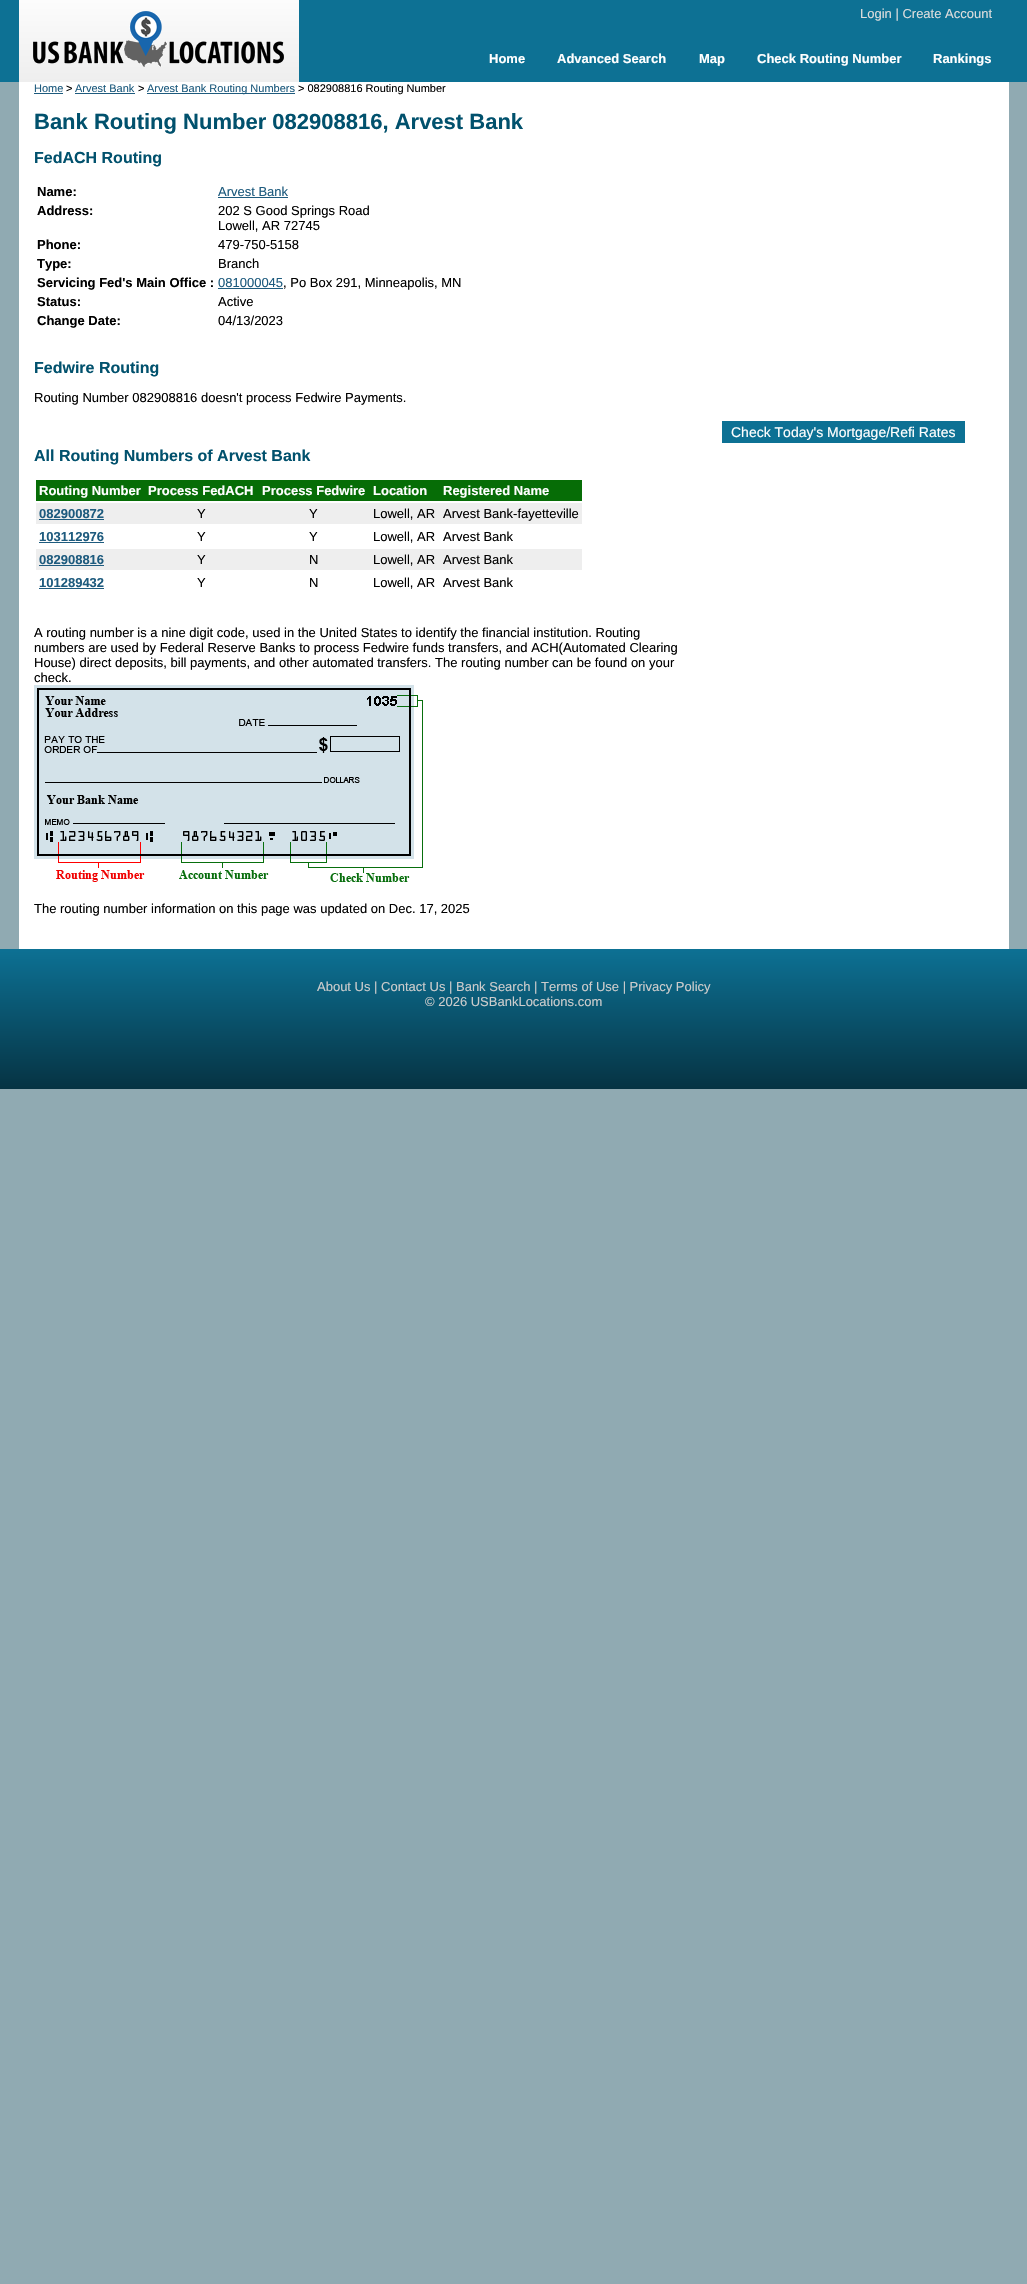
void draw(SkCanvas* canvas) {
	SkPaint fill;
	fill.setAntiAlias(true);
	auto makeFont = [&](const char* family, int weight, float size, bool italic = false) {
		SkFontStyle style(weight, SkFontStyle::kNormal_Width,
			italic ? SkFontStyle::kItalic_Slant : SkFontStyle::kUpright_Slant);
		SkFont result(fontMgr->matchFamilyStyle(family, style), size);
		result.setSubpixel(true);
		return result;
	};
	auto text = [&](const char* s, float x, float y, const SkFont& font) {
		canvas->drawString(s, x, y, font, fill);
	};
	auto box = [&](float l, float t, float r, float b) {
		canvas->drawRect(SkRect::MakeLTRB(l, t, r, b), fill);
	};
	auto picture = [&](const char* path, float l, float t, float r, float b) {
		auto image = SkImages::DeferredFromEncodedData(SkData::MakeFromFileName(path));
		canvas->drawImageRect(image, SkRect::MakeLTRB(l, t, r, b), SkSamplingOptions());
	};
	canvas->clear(0xFF90AAB2);
	fill.setColor(0xFF0D7194);
	box(0, 0, 1027, 82);
	{
		const SkColor colors[] = {0xFFFCFCFC, 0xFFEEEEEE};
		const float stops[] = {0, 1};
		const SkPoint ends[] = {{159, 0}, {159, 82}};
		fill.setShader(SkGradientShader::MakeLinear(ends, colors, stops, 2, SkTileMode::kClamp));
		fill.setAlpha(255);
	}
	box(19, 0, 299, 82);
	picture("image0.png", 33, 11, 284, 67);
	fill.setShader(nullptr);
	fill.setColor(0xFFFFFFFF);
	box(19, 82, 1009, 949);
	fill.setColor(0xFF1E5B7E);
	box(34, 93, 63, 94);
	box(75, 93, 135, 94);
	box(147, 93, 295, 94);
	box(218, 197, 288, 198);
	box(218, 288, 283, 289);
	fill.setColor(0xFF066D06);
	box(36, 480, 582, 501);
	fill.setColor(0xFFEEEEEE);
	box(36, 503, 582, 524);
	fill.setColor(0xFF1E5B7E);
	box(39, 519, 104, 520);
	box(39, 542, 104, 543);
	fill.setColor(0xFFEEEEEE);
	box(36, 549, 582, 570);
	fill.setColor(0xFF1E5B7E);
	box(39, 565, 104, 566);
	box(39, 588, 104, 589);
	picture("image1.png", 34, 685, 423, 882);
	fill.setColor(0xFF0D7194);
	box(722, 421, 965, 443);
	{
		const SkColor colors[] = {0xFF0D7194, 0xFF063343};
		const float stops[] = {0, 1};
		const SkPoint ends[] = {{514, 949}, {514, 1089}};
		fill.setShader(SkGradientShader::MakeLinear(ends, colors, stops, 2, SkTileMode::kClamp));
		fill.setAlpha(255);
	}
	box(0, 949, 1027, 1089);
	auto font1 = makeFont("Liberation Sans", 400, 13);
	fill.setShader(nullptr);
	fill.setColor(0xFFDDDDDD);
	text("Login | Create Account", 860, 18, font1);
	auto font2 = makeFont("Liberation Sans", 700, 13);
	fill.setColor(0xFFFFFFFF);
	text("Home", 489, 63, font2);
	text("Advanced Search", 557, 63, font2);
	text("Map", 699, 63, font2);
	text("Check Routing Number", 757, 63, font2);
	text("Rankings", 933, 63, font2);
	auto font3 = makeFont("Liberation Sans", 400, 11);
	fill.setColor(0xFF1E5B7E);
	text("Home", 34, 92, font3);
	fill.setColor(0xFF000000);
	text(">", 66, 92, font3);
	fill.setColor(0xFF1E5B7E);
	text("Arvest Bank", 75, 92, font3);
	fill.setColor(0xFF000000);
	text(">", 138, 92, font3);
	fill.setColor(0xFF1E5B7E);
	text("Arvest Bank Routing Numbers", 147, 92, font3);
	fill.setColor(0xFF000000);
	text("> 082908816 Routing Number", 298, 92, font3);
	auto font4 = makeFont("Liberation Sans", 700, 22);
	fill.setColor(0xFF01516D);
	text("Bank Routing Number 082908816, Arvest Bank", 34, 129, font4);
	auto font5 = makeFont("Liberation Sans", 700, 16);
	text("FedACH Routing", 34, 163, font5);
	fill.setColor(0xFF000000);
	text("Name:", 37, 196, font2);
	fill.setColor(0xFF1E5B7E);
	text("Arvest Bank", 218, 196, font1);
	fill.setColor(0xFF000000);
	text("Address:", 37, 215, font2);
	text("202 S Good Springs Road", 218, 215, font1);
	text("Lowell, AR 72745", 218, 230, font1);
	text("Phone:", 37, 249, font2);
	text("479-750-5158", 218, 249, font1);
	text("Type:", 37, 268, font2);
	text("Branch", 218, 268, font1);
	text("Servicing Fed's Main Office :", 37, 287, font2);
	fill.setColor(0xFF1E5B7E);
	text("081000045", 218, 287, font1);
	fill.setColor(0xFF000000);
	text(", Po Box 291, Minneapolis, MN", 283, 287, font1);
	text("Status:", 37, 306, font2);
	text("Active", 218, 306, font1);
	text("Change Date:", 37, 325, font2);
	text("04/13/2023", 218, 325, font1);
	fill.setColor(0xFF01516D);
	text("Fedwire Routing", 34, 373, font5);
	fill.setColor(0xFF000000);
	text("Routing Number 082908816 doesn't process Fedwire Payments.", 34, 402, font1);
	fill.setColor(0xFF01516D);
	text("All Routing Numbers of Arvest Bank", 34, 461, font5);
	fill.setColor(0xFFFFFFFF);
	text("Routing Number", 39, 495, font2);
	text("Process FedACH", 148, 495, font2);
	text("Process Fedwire", 262, 495, font2);
	text("Location", 373, 495, font2);
	text("Registered Name", 443, 495, font2);
	fill.setColor(0xFF1E5B7E);
	text("082900872", 39, 518, font2);
	fill.setColor(0xFF000000);
	text("Y", 197, 518, font1);
	text("Y", 309, 518, font1);
	text("Lowell, AR", 373, 518, font1);
	text("Arvest Bank-fayetteville", 443, 518, font1);
	fill.setColor(0xFF1E5B7E);
	text("103112976", 39, 541, font2);
	fill.setColor(0xFF000000);
	text("Y", 197, 541, font1);
	text("Y", 309, 541, font1);
	text("Lowell, AR", 373, 541, font1);
	text("Arvest Bank", 443, 541, font1);
	fill.setColor(0xFF1E5B7E);
	text("082908816", 39, 564, font2);
	fill.setColor(0xFF000000);
	text("Y", 197, 564, font1);
	text("N", 309, 564, font1);
	text("Lowell, AR", 373, 564, font1);
	text("Arvest Bank", 443, 564, font1);
	fill.setColor(0xFF1E5B7E);
	text("101289432", 39, 587, font2);
	fill.setColor(0xFF000000);
	text("Y", 197, 587, font1);
	text("N", 309, 587, font1);
	text("Lowell, AR", 373, 587, font1);
	text("Arvest Bank", 443, 587, font1);
	text("A routing number is a nine digit code, used in the United States to identify the financial institution. Routing", 34, 637, font1);
	text("numbers are used by Federal Reserve Banks to process Fedwire funds transfers, and ACH(Automated Clearing", 34, 652, font1);
	text("House) direct deposits, bill payments, and other automated transfers. The routing number can be found on your", 34, 667, font1);
	text("check.", 34, 682, font1);
	text("The routing number information on this page was updated on Dec. 17, 2025", 34, 913, font1);
	auto font6 = makeFont("Liberation Sans", 400, 14);
	fill.setColor(0xFFFFFFFF);
	text("Check Today's Mortgage/Refi Rates", 731, 437, font6);
	fill.setColor(0xFFCCCCCC);
	text("About Us | Contact Us | Bank Search | Terms of Use | Privacy Policy", 317, 991, font1);
	text("© 2026 USBankLocations.com", 425, 1006, font1);
}
